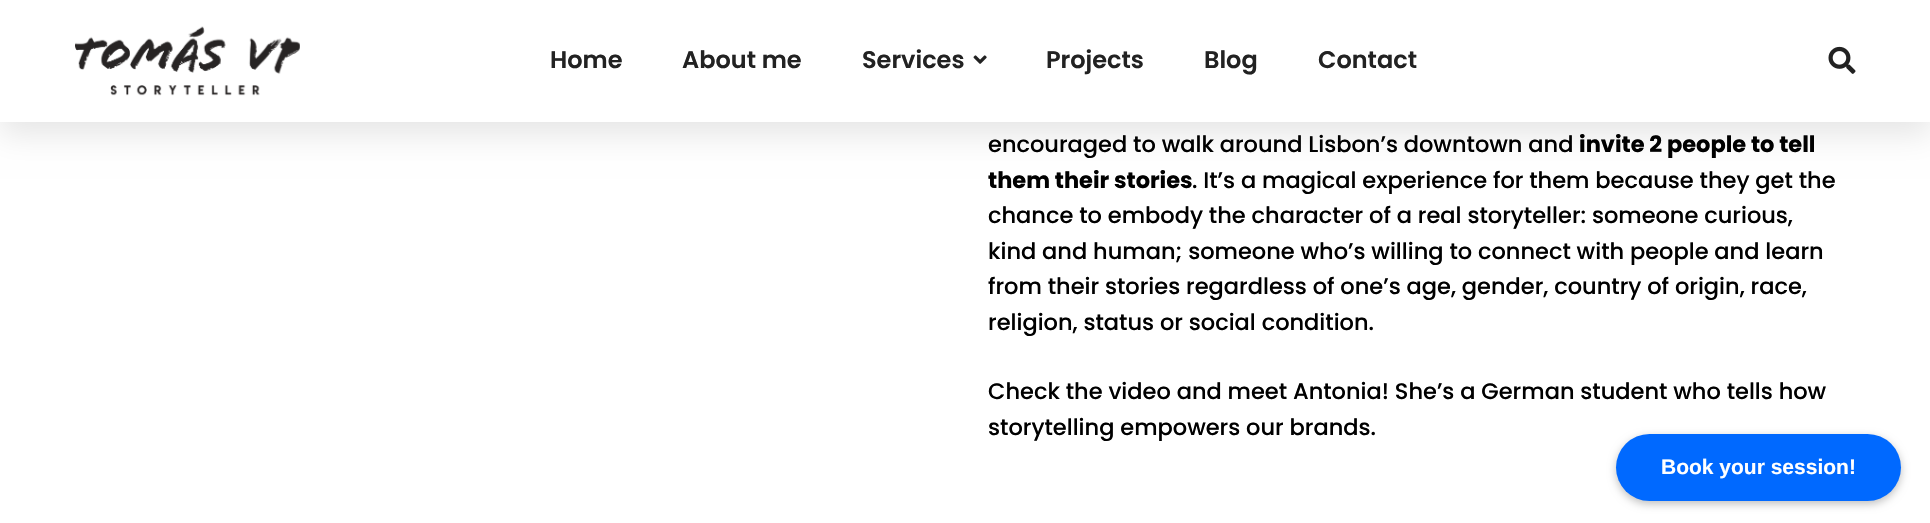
void draw(SkCanvas* canvas) {
	SkPaint fill;
	fill.setAntiAlias(true);
	auto makeFont = [&](const char* family, int weight, float size, bool italic = false) {
		SkFontStyle style(weight, SkFontStyle::kNormal_Width,
			italic ? SkFontStyle::kItalic_Slant : SkFontStyle::kUpright_Slant);
		SkFont result(fontMgr->matchFamilyStyle(family, style), size);
		result.setSubpixel(true);
		return result;
	};
	auto text = [&](const char* s, float x, float y, const SkFont& font) {
		canvas->drawString(s, x, y, font, fill);
	};
	auto box = [&](float l, float t, float r, float b) {
		canvas->drawRect(SkRect::MakeLTRB(l, t, r, b), fill);
	};
	auto roundBox = [&](float l, float t, float r, float b, float radius) {
		canvas->drawRoundRect(SkRect::MakeLTRB(l, t, r, b), radius, radius, fill);
	};
	auto picture = [&](const char* path, float l, float t, float r, float b) {
		auto image = SkImages::DeferredFromEncodedData(SkData::MakeFromFileName(path));
		canvas->drawImageRect(image, SkRect::MakeLTRB(l, t, r, b), SkSamplingOptions());
	};
	canvas->clear(0xFFFFFFFF);
	fill.setColor(0x1A000000);
	fill.setMaskFilter(SkMaskFilter::MakeBlur(kNormal_SkBlurStyle, 15));
	canvas->drawRect(SkRect::MakeLTRB(0, 12, 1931, 134), fill);
	fill.setMaskFilter(nullptr);
	fill.setColor(0xFFFFFFFF);
	box(0, 0, 1930, 122);
	picture("image0.png", 75, 26, 300, 96);
	picture("image1.png", 973, 55, 987, 64);
	picture("image2.png", 1828, 46, 1856, 74);
	fill.setColor(0x40000000);
	fill.setMaskFilter(SkMaskFilter::MakeBlur(kNormal_SkBlurStyle, 4));
	canvas->drawRoundRect(SkRect::MakeLTRB(1616, 437, 1901, 504), 33.5f, 33.5f, fill);
	fill.setMaskFilter(nullptr);
	fill.setColor(0xFF0069FF);
	roundBox(1616, 434, 1901, 501, 33.5f);
	auto font1 = makeFont("Poppins", 600, 24);
	fill.setColor(0xFF222222);
	text("Home", 550, 68, font1);
	text("About me", 682, 68, font1);
	text("Services", 862, 68, font1);
	text("Projects", 1046, 68, font1);
	text("Blog", 1204, 68, font1);
	text("Contact", 1318, 68, font1);
	auto font2 = makeFont("Poppins", 500, 22.5f);
	fill.setColor(0xFF000000);
	text("encouraged to walk around Lisbon’s downtown and", 988, 152, font2);
	auto font3 = makeFont("Poppins", 700, 22.5f);
	text("invite 2 people to tell", 1579, 152, font3);
	text("them their stories", 988, 188, font3);
	text(". It’s a magical experience for them because they get the", 1192, 188, font2);
	text("chance to embody the character of a real storyteller: someone curious,", 988, 223, font2);
	text("kind and human; someone who’s willing to connect with people and learn", 988, 259, font2);
	text("from their stories regardless of one’s age, gender, country of origin, race,", 988, 294, font2);
	text("religion, status or social condition.", 988, 330, font2);
	text("Check the video and meet Antonia! She’s a German student who tells how", 988, 399, font2);
	text("storytelling empowers our brands.", 988, 435, font2);
	auto font4 = makeFont("Liberation Sans", 700, 21);
	fill.setColor(0xFFFFFFFF);
	text("Book your session!", 1661, 474, font4);
}
